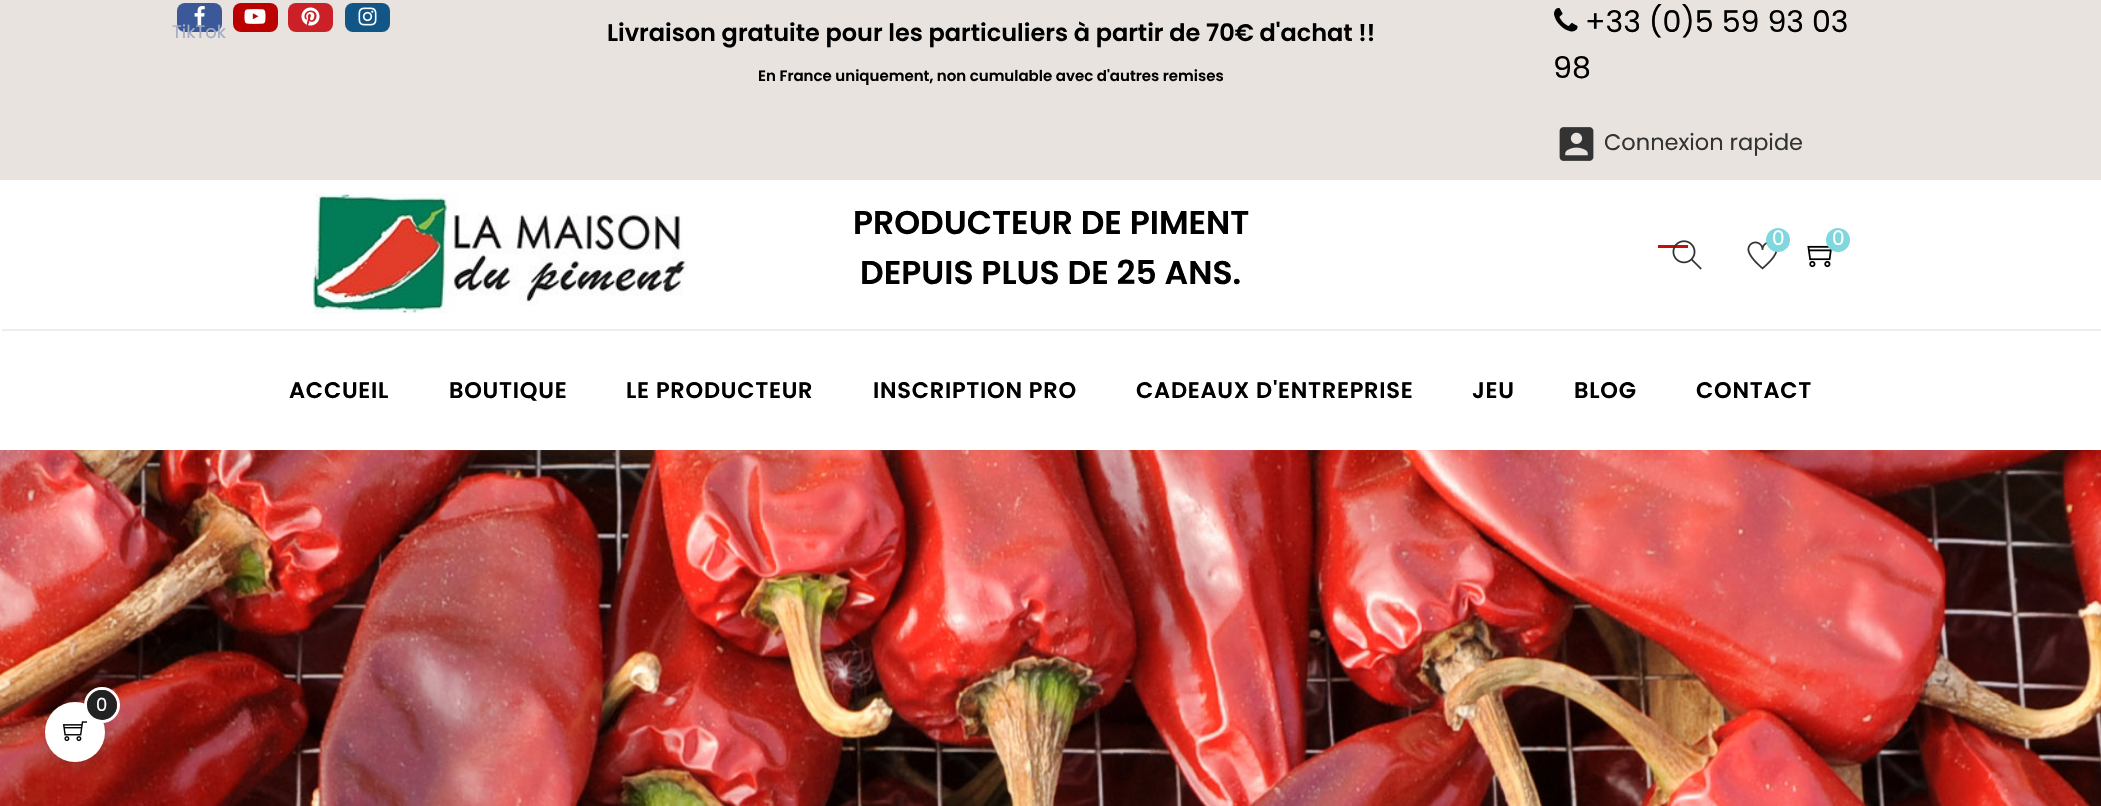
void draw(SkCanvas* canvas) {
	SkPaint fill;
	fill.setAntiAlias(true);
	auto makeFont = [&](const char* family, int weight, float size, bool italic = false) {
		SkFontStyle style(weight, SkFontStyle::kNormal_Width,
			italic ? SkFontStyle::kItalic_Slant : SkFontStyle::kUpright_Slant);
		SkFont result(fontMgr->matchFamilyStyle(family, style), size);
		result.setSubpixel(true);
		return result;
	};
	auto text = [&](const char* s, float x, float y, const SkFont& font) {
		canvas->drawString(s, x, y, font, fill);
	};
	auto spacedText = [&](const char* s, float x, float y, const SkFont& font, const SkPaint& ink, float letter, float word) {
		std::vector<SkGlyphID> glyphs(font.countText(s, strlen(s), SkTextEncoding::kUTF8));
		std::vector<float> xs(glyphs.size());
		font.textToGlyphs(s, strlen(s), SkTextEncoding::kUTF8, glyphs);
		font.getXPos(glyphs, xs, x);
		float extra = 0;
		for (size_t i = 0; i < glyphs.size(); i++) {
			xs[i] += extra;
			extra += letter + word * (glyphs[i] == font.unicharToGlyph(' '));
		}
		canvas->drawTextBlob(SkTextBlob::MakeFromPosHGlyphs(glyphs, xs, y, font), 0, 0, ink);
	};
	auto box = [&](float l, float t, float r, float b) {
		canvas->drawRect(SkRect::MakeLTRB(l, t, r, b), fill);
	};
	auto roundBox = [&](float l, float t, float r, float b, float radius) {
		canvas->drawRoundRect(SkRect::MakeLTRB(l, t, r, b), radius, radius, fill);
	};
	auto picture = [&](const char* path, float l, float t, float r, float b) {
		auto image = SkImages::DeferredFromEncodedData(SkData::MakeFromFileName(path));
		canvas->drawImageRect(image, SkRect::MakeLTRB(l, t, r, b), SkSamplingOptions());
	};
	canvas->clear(0xFFFFFFFF);
	fill.setColor(0xFFE8E3DE);
	box(0, 0, 2101, 180);
	fill.setColor(0xFF3B5998);
	roundBox(177, 3, 222, 32, 8);
	picture("image0.png", 194, 6, 205, 26);
	fill.setColor(0xFFBB0000);
	roundBox(233, 3, 278, 32, 8);
	picture("image1.png", 244, 9, 266, 24);
	fill.setColor(0xFFCB2027);
	roundBox(288, 3, 333, 32, 8);
	picture("image2.png", 301, 7, 320, 26);
	fill.setColor(0xFF125688);
	roundBox(345, 3, 390, 32, 8);
	picture("image3.png", 358, 7, 377, 26);
	picture("image4.png", 1554, 8, 1578, 32);
	picture("image5.png", 1559, 127, 1594, 161);
	picture("image6.png", 313, 193, 689, 314);
	picture("image7.png", 1747, 241, 1778, 270);
	fill.setColor(0xFF80D7DD);
	canvas->drawCircle(1778, 240, 12, fill);
	picture("image8.png", 1807, 245, 1832, 268);
	canvas->drawCircle(1838, 240, 12, fill);
	fill.setColor(0xFFCC0C07);
	box(1658, 245, 1688, 248);
	picture("image9.png", 1672, 240, 1702, 270);
	fill.setColor(0xFFEEEEEE);
	box(2, 329, 2101, 331);
	picture("image10.png", 0, 450, 2101, 806);
	fill.setColor(0x26000000);
	fill.setMaskFilter(SkMaskFilter::MakeBlur(kNormal_SkBlurStyle, 7.5f));
	canvas->drawRoundRect(SkRect::MakeLTRB(48, 707, 108, 767), 30, 30, fill);
	fill.setMaskFilter(nullptr);
	fill.setColor(0xFFFFFFFF);
	canvas->drawCircle(75, 732, 30, fill);
	picture("image11.png", 62, 721, 87, 742);
	fill.setStyle(SkPaint::kStroke_Style);
	fill.setStrokeWidth(3);
	canvas->drawCircle(102, 705, 16.5f, fill);
	fill.setStyle(SkPaint::kFill_Style);
	fill.setColor(0xFF222222);
	canvas->drawCircle(102, 705, 15, fill);
	auto font1 = makeFont("Poppins", 400, 18);
	fill.setColor(0xFFA4ADC3);
	text("TikTok", 172, 38, font1);
	auto font2 = makeFont("Poppins", 600, 24);
	fill.setColor(0xFF000000);
	text("Livraison gratuite pour les particuliers à partir de 70€ d'achat !!", 607, 41, font2);
	auto font3 = makeFont("Poppins", 600, 15);
	text("En France uniquement, non cumulable avec d'autres remises", 758, 81, font3);
	auto font4 = makeFont("Poppins", 400, 30);
	text("+33 (0)5 59 93 03", 1585, 32, font4);
	text("98", 1553, 78, font4);
	auto font5 = makeFont("Poppins", 400, 22.5f);
	fill.setColor(0xFF333333);
	text("Connexion rapide", 1604, 150, font5);
	auto font6 = makeFont("Poppins", 600, 33);
	fill.setColor(0xFF000000);
	text("PRODUCTEUR DE PIMENT", 853, 234, font6);
	text("DEPUIS PLUS DE 25 ANS.", 860, 284, font6);
	auto font7 = makeFont("Poppins", 400, 20);
	fill.setColor(0xFFFFFFFF);
	text("0", 1772, 245, font7);
	text("0", 1832, 245, font7);
	auto font8 = makeFont("Poppins", 600, 22.5f);
	fill.setColor(0xFF000000);
	spacedText("ACCUEIL", 289, 398, font8, fill, 0.75f, 0);
	spacedText("BOUTIQUE", 449, 398, font8, fill, 0.75f, 0);
	spacedText("LE PRODUCTEUR", 626, 398, font8, fill, 0.75f, 0);
	spacedText("INSCRIPTION PRO", 873, 398, font8, fill, 0.75f, 0);
	spacedText("CADEAUX D'ENTREPRISE", 1136, 398, font8, fill, 0.75f, 0);
	spacedText("JEU", 1472, 398, font8, fill, 0.75f, 0);
	spacedText("BLOG", 1574, 398, font8, fill, 0.75f, 0);
	spacedText("CONTACT", 1696, 398, font8, fill, 0.75f, 0);
	fill.setColor(0xFFFFFFFF);
	text("0", 96, 711, font1);
}
